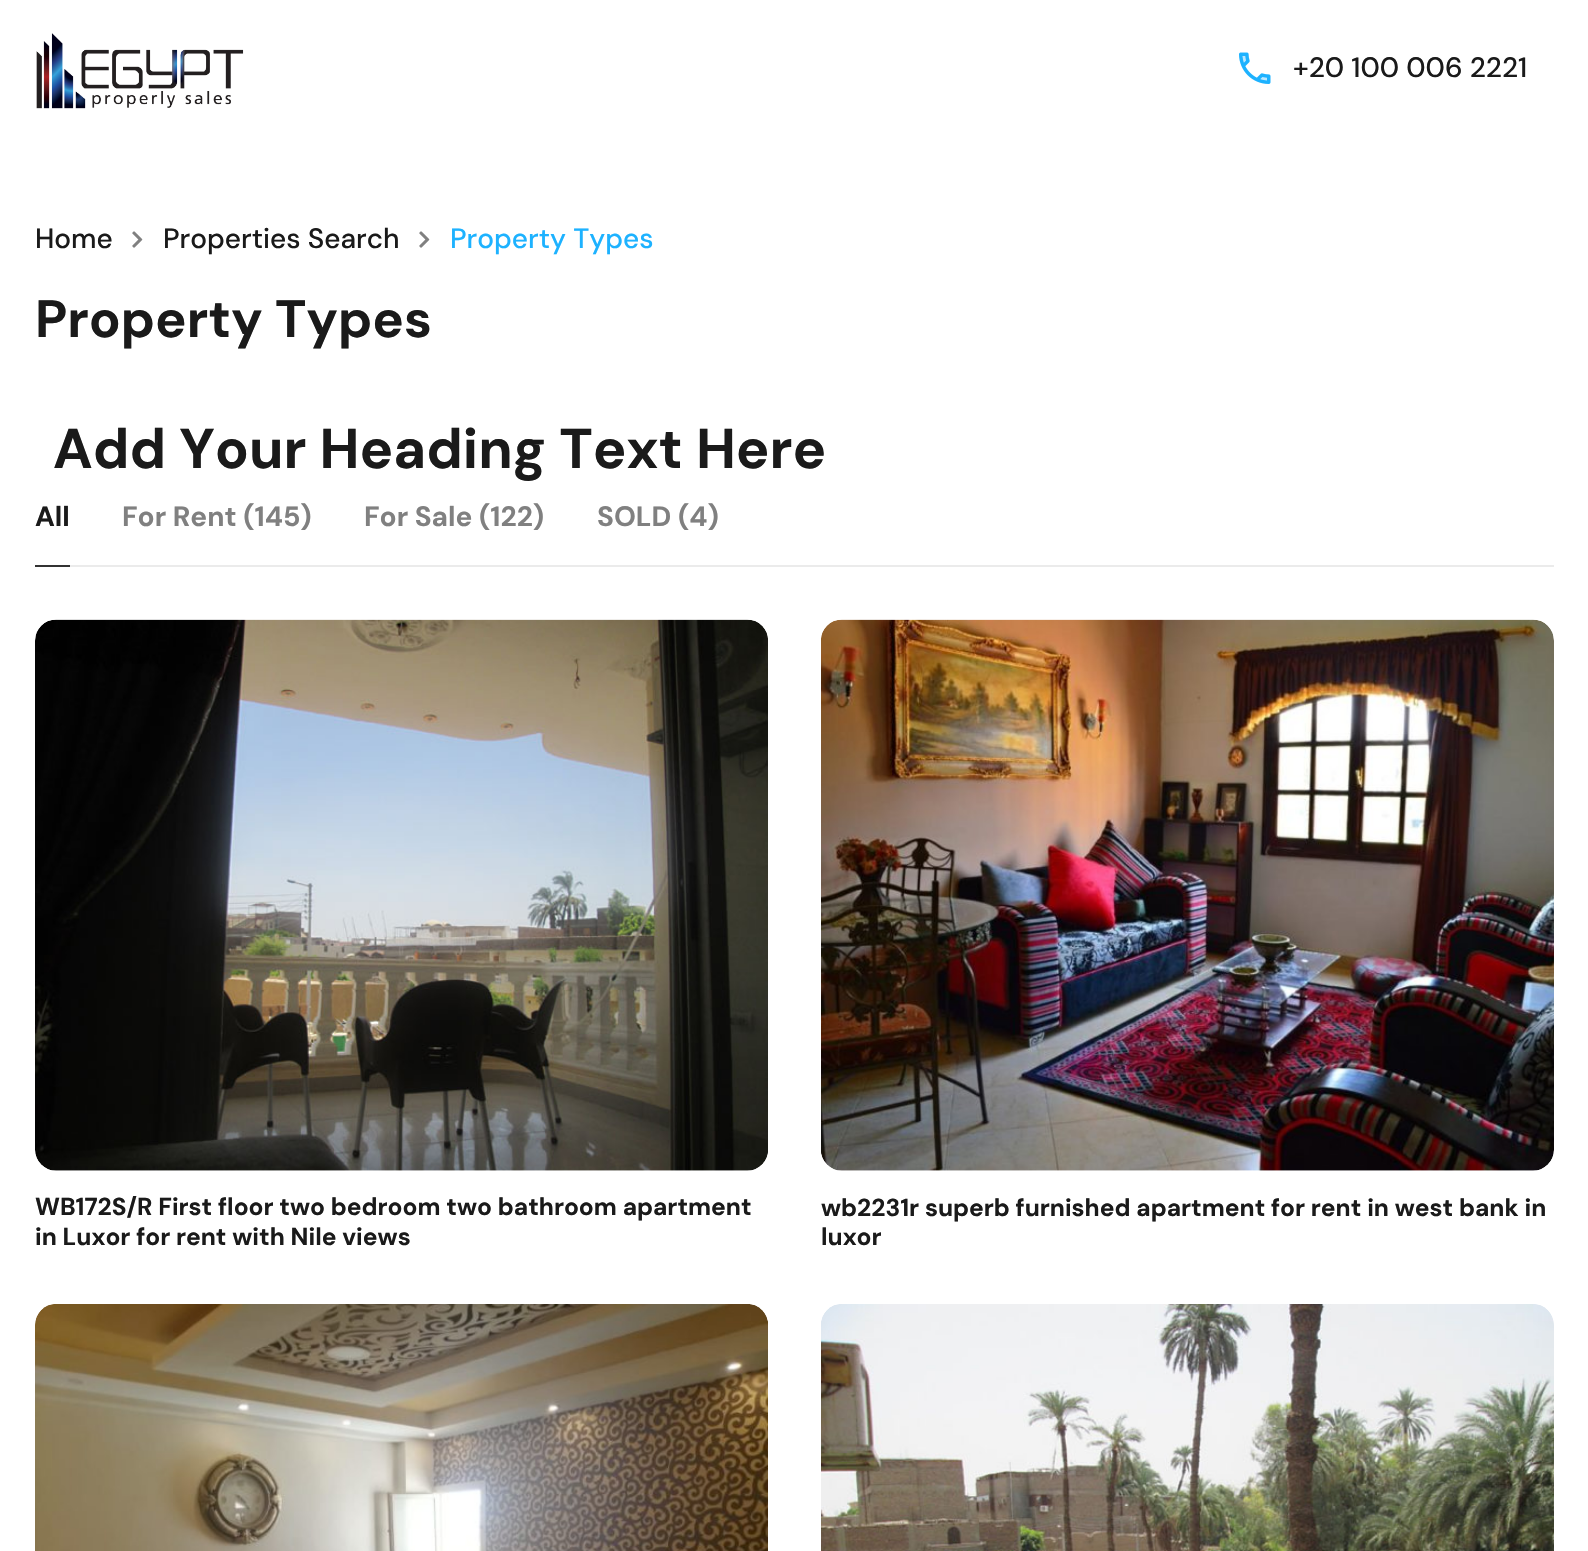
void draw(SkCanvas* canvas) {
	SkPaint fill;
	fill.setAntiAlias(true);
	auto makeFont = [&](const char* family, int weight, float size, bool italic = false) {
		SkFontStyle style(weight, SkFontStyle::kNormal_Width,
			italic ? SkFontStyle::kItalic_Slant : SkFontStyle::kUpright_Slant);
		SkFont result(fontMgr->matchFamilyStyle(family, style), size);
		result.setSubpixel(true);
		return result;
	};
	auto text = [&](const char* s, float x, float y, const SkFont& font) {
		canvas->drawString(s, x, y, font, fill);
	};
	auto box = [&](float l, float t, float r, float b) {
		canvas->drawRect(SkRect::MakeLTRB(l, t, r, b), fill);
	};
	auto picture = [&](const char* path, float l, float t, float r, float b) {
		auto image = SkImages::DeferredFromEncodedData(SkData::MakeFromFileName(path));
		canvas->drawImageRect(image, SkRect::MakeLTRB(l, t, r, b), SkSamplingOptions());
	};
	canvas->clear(0xFFFFFFFF);
	fill.setColor(0xFFEBEBEB);
	box(70, 565, 1554, 567);
	picture("image0.png", 36, 33, 244, 109);
	picture("image1.png", 1239, 52, 1271, 84);
	picture("image2.png", 132, 231, 143, 248);
	picture("image2.png", 419, 231, 430, 248);
	fill.setColor(0xFF333333);
	box(35, 565, 70, 567);
	picture("image3.png", 35, 619, 768, 1171);
	picture("image4.png", 821, 619, 1554, 1171);
	picture("image5.png", 35, 1304, 768, 1551);
	picture("image6.png", 821, 1304, 1554, 1551);
	auto font1 = makeFont("DM Sans", 500, 28);
	fill.setColor(0xFF1A1A1A);
	text("+20 100 006 2221", 1293, 77, font1);
	text("Home", 35, 248, font1);
	text("Properties Search", 163, 248, font1);
	fill.setColor(0xFF1DB2FF);
	text("Property Types", 450, 248, font1);
	auto font2 = makeFont("DM Sans", 700, 52.5f);
	fill.setColor(0xFF1A1A1A);
	text("Property Types", 35, 337, font2);
	auto font3 = makeFont("DM Sans", 700, 56);
	text("Add Your Heading Text Here", 53, 468, font3);
	auto font4 = makeFont("DM Sans", 700, 28);
	text("All", 35, 526, font4);
	fill.setColor(0xFF808080);
	text("For Rent (145)", 122, 526, font4);
	text("For Sale (122)", 364, 526, font4);
	text("SOLD (4)", 597, 526, font4);
	auto font5 = makeFont("DM Sans", 700, 24.5f);
	fill.setColor(0xFF1A1A1A);
	text("WB172S/R First floor two bedroom two bathroom apartment", 35, 1215, font5);
	text("in Luxor for rent with Nile views", 35, 1245, font5);
	text("wb2231r superb furnished apartment for rent in west bank in", 821, 1216, font5);
	text("luxor", 821, 1245, font5);
}
